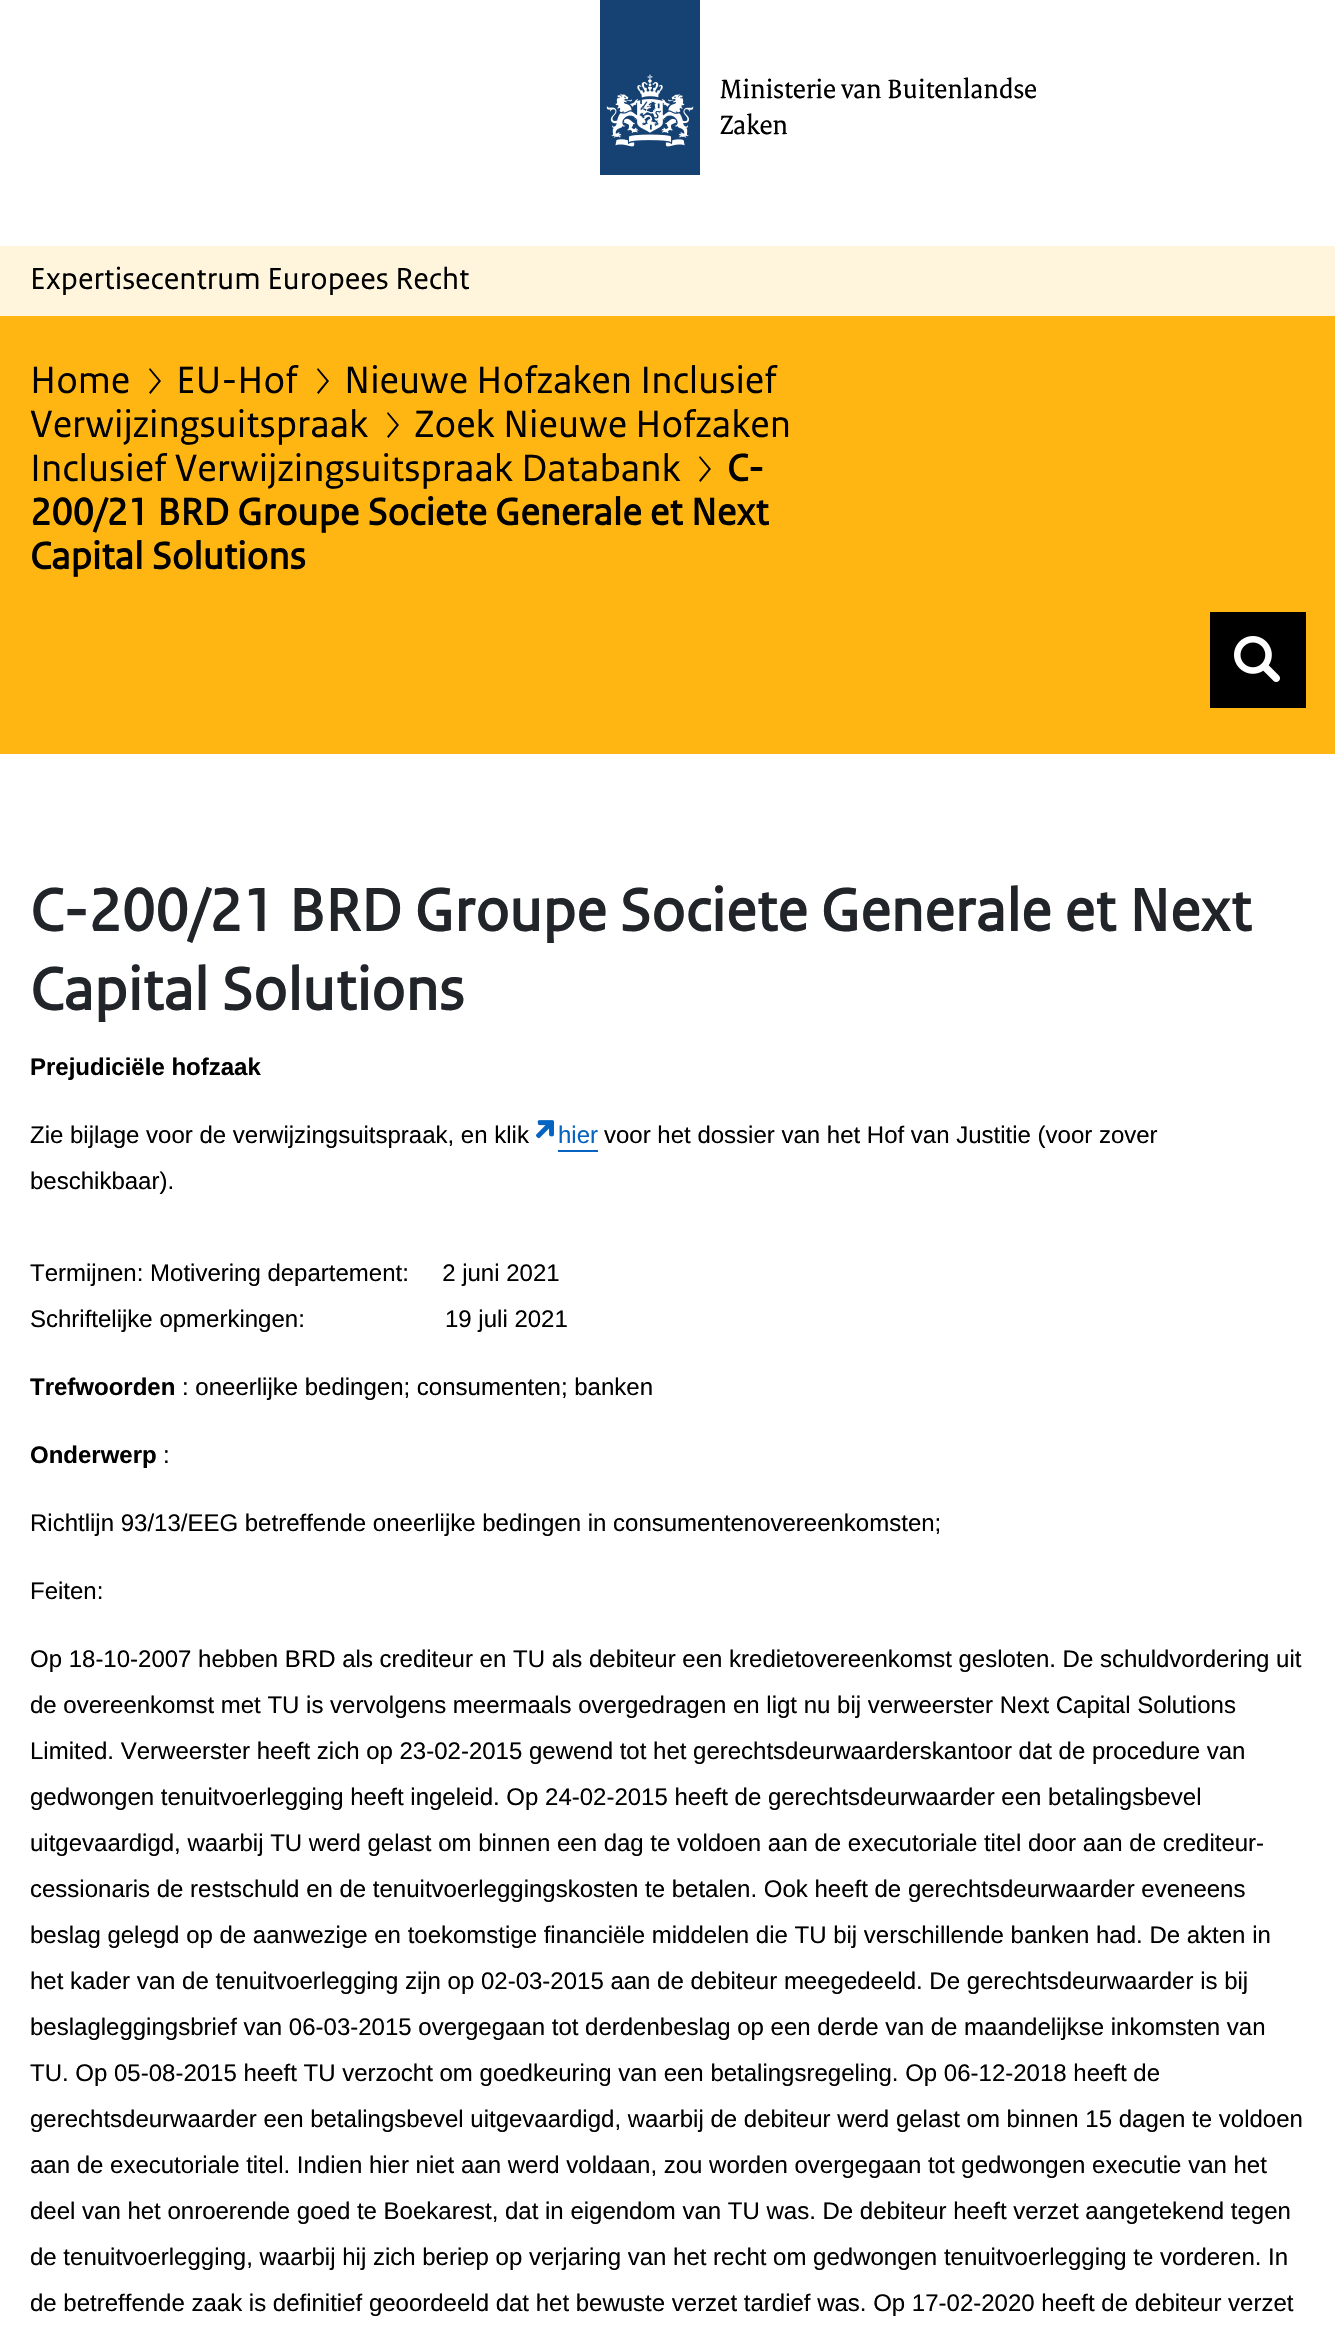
void draw(SkCanvas* canvas) {
	SkPaint fill;
	fill.setAntiAlias(true);
	auto makeFont = [&](const char* family, int weight, float size, bool italic = false) {
		SkFontStyle style(weight, SkFontStyle::kNormal_Width,
			italic ? SkFontStyle::kItalic_Slant : SkFontStyle::kUpright_Slant);
		SkFont result(fontMgr->matchFamilyStyle(family, style), size);
		result.setSubpixel(true);
		return result;
	};
	auto text = [&](const char* s, float x, float y, const SkFont& font) {
		canvas->drawString(s, x, y, font, fill);
	};
	auto box = [&](float l, float t, float r, float b) {
		canvas->drawRect(SkRect::MakeLTRB(l, t, r, b), fill);
	};
	auto picture = [&](const char* path, float l, float t, float r, float b) {
		auto image = SkImages::DeferredFromEncodedData(SkData::MakeFromFileName(path));
		canvas->drawImageRect(image, SkRect::MakeLTRB(l, t, r, b), SkSamplingOptions());
	};
	canvas->clear(0xFFFFFFFF);
	picture("image0.png", 600, 0, 700, 175);
	fill.setColor(0xFFFFF4DC);
	box(0, 246, 1335, 316);
	fill.setColor(0xFFFFB612);
	box(0, 316, 1335, 754);
	fill.setColor(0xFF000000);
	canvas->drawPath(SkPathBuilder().moveTo(150.5f, 394).lineTo(149, 392.5f).lineTo(158.5f, 381).lineTo(149, 369.5f).lineTo(150, 368).lineTo(161, 381).close().detach(), fill);
	canvas->drawPath(SkPathBuilder().moveTo(318.5f, 394).lineTo(317, 392.5f).lineTo(326.5f, 381).lineTo(317, 369.5f).lineTo(318, 368).lineTo(329, 381).close().detach(), fill);
	canvas->drawPath(SkPathBuilder().moveTo(388.5f, 438).lineTo(387, 436.5f).lineTo(396.5f, 425).lineTo(387, 413.5f).lineTo(388, 412).lineTo(399, 425).close().detach(), fill);
	canvas->drawPath(SkPathBuilder().moveTo(700.5f, 482).lineTo(699, 480.5f).lineTo(708.5f, 469).lineTo(699, 457.5f).lineTo(700, 456).lineTo(711, 469).close().detach(), fill);
	box(1210, 612, 1306, 708);
	picture("image1.png", 1234, 636, 1280, 682);
	picture("image2.png", 536, 1120, 554, 1139);
	fill.setColor(0xFF0563C1);
	box(558, 1150, 598, 1152);
	auto font1 = makeFont("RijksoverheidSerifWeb", 400, 28.5f);
	fill.setColor(0xFF000000);
	text("Ministerie van Buitenlandse", 720, 98, font1);
	text("Zaken", 720, 134, font1);
	auto font2 = makeFont("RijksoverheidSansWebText", 400, 32);
	text("Expertisecentrum Europees Recht", 30, 289, font2);
	auto font3 = makeFont("RijksoverheidSansWebText", 400, 40);
	text("Home", 30, 393, font3);
	text("EU-Hof", 176, 393, font3);
	text("Nieuwe Hofzaken Inclusief", 344, 393, font3);
	text("Verwijzingsuitspraak", 30, 437, font3);
	text("Zoek Nieuwe Hofzaken", 414, 437, font3);
	text("Inclusief Verwijzingsuitspraak Databank", 30, 481, font3);
	auto font4 = makeFont("RijksoverheidSansWebText", 700, 40);
	text("C-", 727, 481, font4);
	text("200/21 BRD Groupe Societe Generale et Next", 30, 525, font4);
	text("Capital Solutions", 30, 569, font4);
	auto font5 = makeFont("RijksoverheidSansWebText", 700, 63);
	fill.setColor(0xFF212529);
	text("C-200/21 BRD Groupe Societe Generale et Next", 30, 931, font5);
	text("Capital Solutions", 30, 1010, font5);
	auto font6 = makeFont("Liberation Sans", 700, 24);
	fill.setColor(0xFF000000);
	text("Prejudiciële hofzaak", 30, 1075, font6);
	auto font7 = makeFont("Liberation Sans", 400, 24);
	text("Zie bijlage voor de verwijzingsuitspraak, en klik", 30, 1143, font7);
	fill.setColor(0xFF0563C1);
	text("hier", 558, 1143, font7);
	fill.setColor(0xFF000000);
	text("voor het dossier van het Hof van Justitie (voor zover", 604, 1143, font7);
	text("beschikbaar).", 30, 1189, font7);
	text("Termijnen: Motivering departement:     2 juni 2021", 30, 1281, font7);
	text("Schriftelijke opmerkingen:", 30, 1327, font7);
	text("19 juli 2021", 445, 1327, font7);
	text("Trefwoorden", 30, 1395, font6);
	text(": oneerlijke bedingen; consumenten; banken", 182, 1395, font7);
	text("Onderwerp", 30, 1463, font6);
	text(":", 163, 1463, font7);
	text("Richtlijn 93/13/EEG betreffende oneerlijke bedingen in consumentenovereenkomsten;", 30, 1531, font7);
	text("Feiten:", 30, 1599, font7);
	text("Op 18-10-2007 hebben BRD als crediteur en TU als debiteur een kredietovereenkomst gesloten. De schuldvordering uit", 30, 1667, font7);
	text("de overeenkomst met TU is vervolgens meermaals overgedragen en ligt nu bij verweerster Next Capital Solutions", 30, 1713, font7);
	text("Limited. Verweerster heeft zich op 23-02-2015 gewend tot het gerechtsdeurwaarderskantoor dat de procedure van", 30, 1759, font7);
	text("gedwongen tenuitvoerlegging heeft ingeleid. Op 24-02-2015 heeft de gerechtsdeurwaarder een betalingsbevel", 30, 1805, font7);
	text("uitgevaardigd, waarbij TU werd gelast om binnen een dag te voldoen aan de executoriale titel door aan de crediteur-", 30, 1851, font7);
	text("cessionaris de restschuld en de tenuitvoerleggingskosten te betalen. Ook heeft de gerechtsdeurwaarder eveneens", 30, 1897, font7);
	text("beslag gelegd op de aanwezige en toekomstige financiële middelen die TU bij verschillende banken had. De akten in", 30, 1943, font7);
	text("het kader van de tenuitvoerlegging zijn op 02-03-2015 aan de debiteur meegedeeld. De gerechtsdeurwaarder is bij", 30, 1989, font7);
	text("beslagleggingsbrief van 06-03-2015 overgegaan tot derdenbeslag op een derde van de maandelijkse inkomsten van", 30, 2035, font7);
	text("TU. Op 05-08-2015 heeft TU verzocht om goedkeuring van een betalingsregeling. Op 06-12-2018 heeft de", 30, 2081, font7);
	text("gerechtsdeurwaarder een betalingsbevel uitgevaardigd, waarbij de debiteur werd gelast om binnen 15 dagen te voldoen", 30, 2127, font7);
	text("aan de executoriale titel. Indien hier niet aan werd voldaan, zou worden overgegaan tot gedwongen executie van het", 30, 2173, font7);
	text("deel van het onroerende goed te Boekarest, dat in eigendom van TU was. De debiteur heeft verzet aangetekend tegen", 30, 2219, font7);
	text("de tenuitvoerlegging, waarbij hij zich beriep op verjaring van het recht om gedwongen tenuitvoerlegging te vorderen. In", 30, 2265, font7);
	text("de betreffende zaak is definitief geoordeeld dat het bewuste verzet tardief was. Op 17-02-2020 heeft de debiteur verzet", 30, 2311, font7);
}
